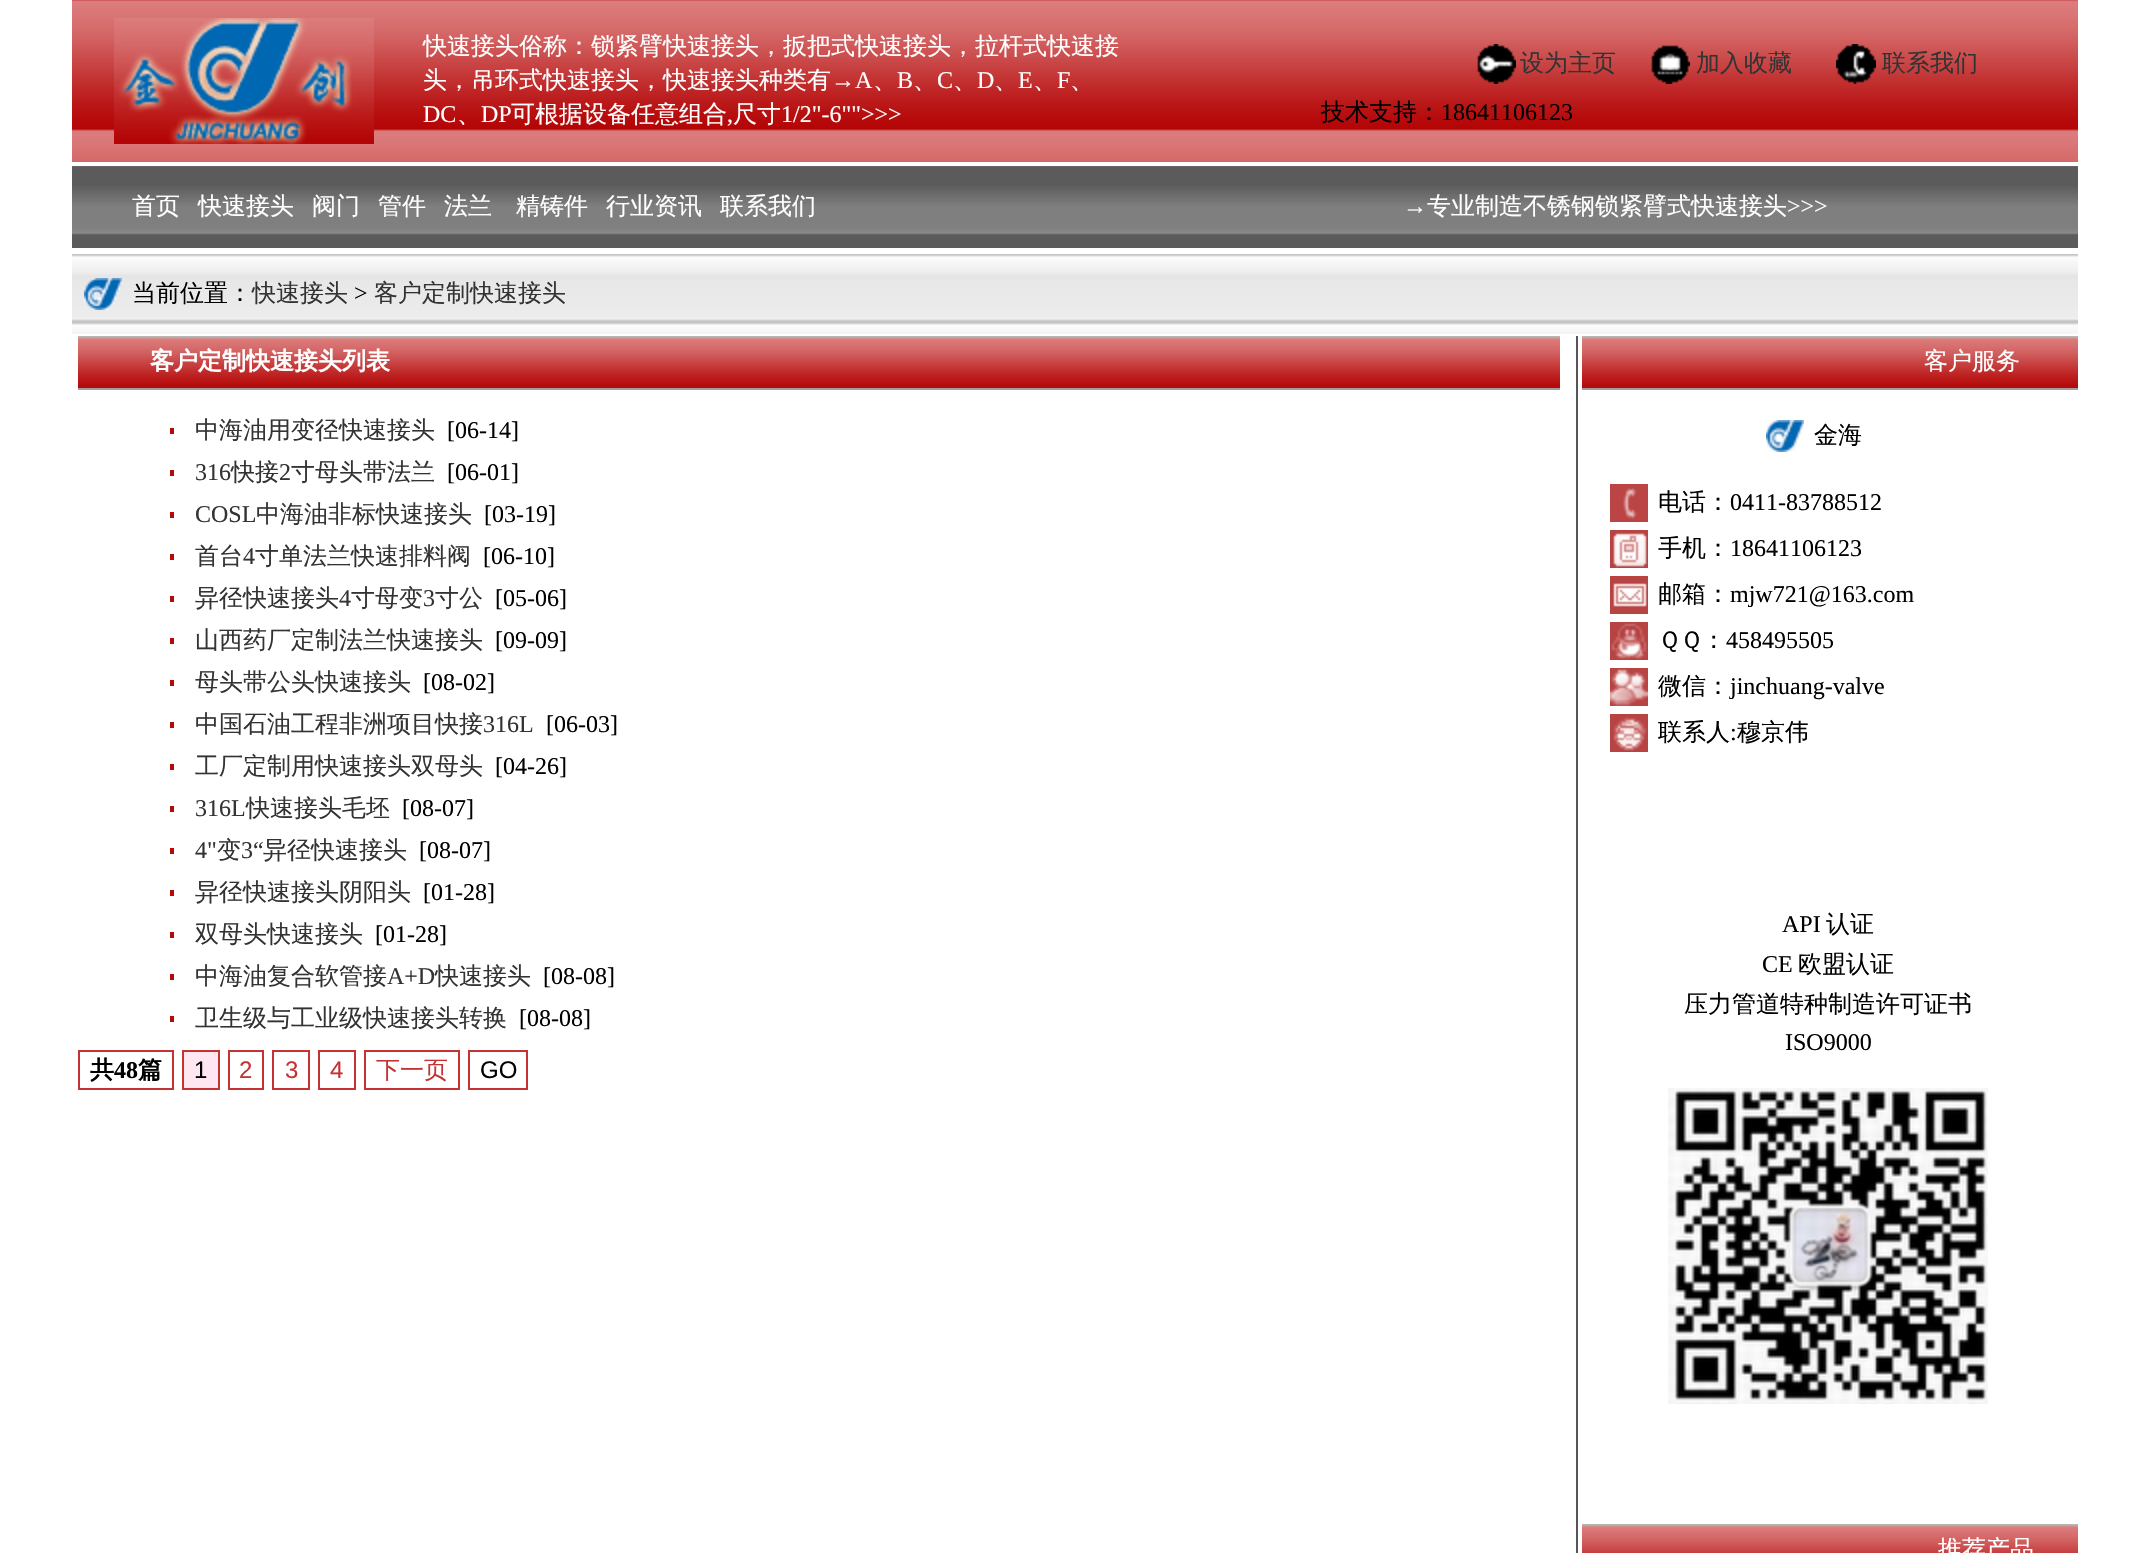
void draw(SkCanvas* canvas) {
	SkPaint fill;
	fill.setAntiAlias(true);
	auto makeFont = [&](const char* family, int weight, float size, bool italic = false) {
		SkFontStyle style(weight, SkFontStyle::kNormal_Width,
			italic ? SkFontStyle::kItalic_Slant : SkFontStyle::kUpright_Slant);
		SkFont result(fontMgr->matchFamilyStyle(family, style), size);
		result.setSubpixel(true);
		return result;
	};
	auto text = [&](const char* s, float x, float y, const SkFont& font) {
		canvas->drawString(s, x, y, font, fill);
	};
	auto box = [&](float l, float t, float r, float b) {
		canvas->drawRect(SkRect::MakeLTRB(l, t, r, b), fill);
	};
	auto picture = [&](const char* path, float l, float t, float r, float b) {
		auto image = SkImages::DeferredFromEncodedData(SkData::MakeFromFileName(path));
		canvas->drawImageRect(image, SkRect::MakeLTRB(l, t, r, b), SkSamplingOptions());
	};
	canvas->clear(0xFFFFFFFF);
	picture("image0.png", 72, 0, 418, 162);
	picture("image1.png", 114, 18, 374, 144);
	picture("image2.png", 418, 0, 1136, 162);
	picture("image3.png", 1136, 0, 2054, 162);
	picture("image4.png", 1477, 44, 1516, 84);
	picture("image5.png", 1651, 45, 1690, 84);
	picture("image6.png", 1836, 44, 1876, 84);
	picture("image7.png", 2054, 0, 2078, 162);
	picture("image8.png", 72, 166, 2078, 248);
	picture("image9.png", 72, 254, 132, 334);
	picture("image10.png", 84, 278, 122, 310);
	picture("image11.png", 132, 254, 2078, 334);
	picture("image12.png", 78, 336, 1442, 388);
	picture("image13.png", 1442, 336, 1560, 388);
	fill.setColor(0xFF9F9F9F);
	box(78, 388, 1560, 390);
	fill.setColor(0xFFB6090A);
	box(170, 428, 174, 434);
	box(170, 470, 174, 476);
	box(170, 512, 174, 518);
	box(170, 554, 174, 560);
	box(170, 596, 174, 602);
	box(170, 638, 174, 644);
	box(170, 680, 174, 686);
	box(170, 722, 174, 728);
	box(170, 764, 174, 770);
	box(170, 806, 174, 812);
	box(170, 848, 174, 854);
	box(170, 890, 174, 896);
	box(170, 932, 174, 938);
	box(170, 974, 174, 980);
	box(170, 1016, 174, 1022);
	fill.setStyle(SkPaint::kStroke_Style);
	fill.setStrokeWidth(2);
	fill.setColor(0xFFC33333);
	canvas->drawRect(SkRect::MakeLTRB(79, 1051, 173, 1089), fill);
	fill.setStyle(SkPaint::kFill_Style);
	fill.setColor(0xFFFEE7F0);
	canvas->drawRect(SkRect::MakeLTRB(183, 1051, 219, 1089), fill);
	fill.setStyle(SkPaint::kStroke_Style);
	fill.setColor(0xFFC33333);
	canvas->drawRect(SkRect::MakeLTRB(183, 1051, 219, 1089), fill);
	canvas->drawRect(SkRect::MakeLTRB(229, 1051, 263, 1089), fill);
	canvas->drawRect(SkRect::MakeLTRB(273, 1051, 309, 1089), fill);
	canvas->drawRect(SkRect::MakeLTRB(319, 1051, 355, 1089), fill);
	canvas->drawRect(SkRect::MakeLTRB(365, 1051, 459, 1089), fill);
	canvas->drawRect(SkRect::MakeLTRB(469, 1051, 527, 1089), fill);
	fill.setStyle(SkPaint::kFill_Style);
	fill.setColor(0xFF575656);
	box(1576, 336, 1578, 1553);
	picture("image14.png", 1582, 336, 1744, 388);
	picture("image15.png", 1744, 336, 2020, 388);
	picture("image16.png", 2020, 336, 2064, 388);
	picture("image17.png", 2064, 336, 2078, 388);
	fill.setColor(0xFF9F9F9F);
	box(1582, 388, 2078, 390);
	picture("image18.png", 1766, 420, 1804, 452);
	picture("image19.png", 1610, 484, 1648, 522);
	picture("image20.png", 1610, 530, 1648, 568);
	picture("image21.png", 1610, 576, 1648, 614);
	picture("image22.png", 1610, 622, 1648, 660);
	picture("image23.png", 1610, 668, 1648, 706);
	picture("image24.png", 1610, 714, 1648, 752);
	picture("image25.png", 1668, 1088, 1988, 1404);
	picture("image26.png", 1582, 1524, 1786, 1553);
	picture("image27.png", 1786, 1524, 2036, 1553);
	picture("image28.png", 2036, 1524, 2066, 1553);
	picture("image29.png", 2066, 1524, 2078, 1553);
	auto font1 = makeFont("WenQuanYi Zen Hei", 500, 24);
	fill.setColor(0xFFFFFFFF);
	text("快速接头俗称：锁紧臂快速接头，扳把式快速接头，拉杆式快速接", 423, 54, font1);
	text("头，吊环式快速接头，快速接头种类有", 423, 88, font1);
	auto font2 = makeFont("Liberation Serif", 400, 24);
	text("→A", 831, 88, font2);
	text("B", 897, 88, font2);
	text("C", 937, 88, font2);
	text("D", 977, 88, font2);
	text("E", 1018, 88, font2);
	text("F", 1057, 88, font2);
	text("、", 873, 88, font1);
	text("、", 913, 88, font1);
	text("、", 953, 88, font1);
	text("、", 994, 88, font1);
	text("、", 1033, 88, font1);
	text("、", 1070, 88, font1);
	text("DC", 423, 122, font2);
	text("、", 457, 122, font1);
	text("DP", 481, 122, font2);
	text("可根据设备任意组合", 511, 122, font1);
	text(",", 727, 122, font2);
	text("尺寸", 733, 122, font1);
	text("1/2\"-6\"\">>>", 781, 122, font2);
	fill.setColor(0xFF333333);
	text("设为主页", 1520, 71, font1);
	text("加入收藏", 1696, 71, font1);
	text("联系我们", 1882, 71, font1);
	fill.setColor(0xFF000000);
	text("技术支持：", 1321, 120, font1);
	text("18641106123", 1441, 120, font2);
	fill.setColor(0xFFFFFFFF);
	text("首页", 132, 214, font1);
	text("快速接头", 198, 214, font1);
	text("阀门", 312, 214, font1);
	text("管件", 378, 214, font1);
	text("法兰", 444, 214, font1);
	text("精铸件", 516, 214, font1);
	text("行业资讯", 606, 214, font1);
	text("联系我们", 720, 214, font1);
	text("→", 1403, 214, font2);
	text("专业制造不锈钢锁紧臂式快速接头", 1427, 214, font1);
	text(">>>", 1787, 214, font2);
	fill.setColor(0xFF000000);
	text("当前位置：", 132, 301, font1);
	fill.setColor(0xFF333333);
	text("快速接头", 252, 301, font1);
	fill.setColor(0xFF000000);
	text(">", 354, 301, font2);
	fill.setColor(0xFF333333);
	text("客户定制快速接头", 374, 301, font1);
	auto font3 = makeFont("WenQuanYi Zen Hei", 700, 24);
	fill.setColor(0xFFFFFFFF);
	text("客户定制快速接头列表", 150, 369, font3);
	fill.setColor(0xFF333333);
	text("中海油用变径快速接头", 195, 438, font1);
	fill.setColor(0xFF000000);
	text("[06-14]", 447, 438, font2);
	fill.setColor(0xFF333333);
	text("316", 195, 480, font2);
	text("快接", 231, 480, font1);
	text("2", 279, 480, font2);
	text("寸母头带法兰", 291, 480, font1);
	fill.setColor(0xFF000000);
	text("[06-01]", 447, 480, font2);
	fill.setColor(0xFF333333);
	text("COSL", 195, 522, font2);
	text("中海油非标快速接头", 256, 522, font1);
	fill.setColor(0xFF000000);
	text("[03-19]", 484, 522, font2);
	fill.setColor(0xFF333333);
	text("首台", 195, 564, font1);
	text("4", 243, 564, font2);
	text("寸单法兰快速排料阀", 255, 564, font1);
	fill.setColor(0xFF000000);
	text("[06-10]", 483, 564, font2);
	fill.setColor(0xFF333333);
	text("异径快速接头", 195, 606, font1);
	text("4", 339, 606, font2);
	text("寸母变", 351, 606, font1);
	text("3", 423, 606, font2);
	text("寸公", 435, 606, font1);
	fill.setColor(0xFF000000);
	text("[05-06]", 495, 606, font2);
	fill.setColor(0xFF333333);
	text("山西药厂定制法兰快速接头", 195, 648, font1);
	fill.setColor(0xFF000000);
	text("[09-09]", 495, 648, font2);
	fill.setColor(0xFF333333);
	text("母头带公头快速接头", 195, 690, font1);
	fill.setColor(0xFF000000);
	text("[08-02]", 423, 690, font2);
	fill.setColor(0xFF333333);
	text("中国石油工程非洲项目快接", 195, 732, font1);
	text("316L", 483, 732, font2);
	fill.setColor(0xFF000000);
	text("[06-03]", 546, 732, font2);
	fill.setColor(0xFF333333);
	text("工厂定制用快速接头双母头", 195, 774, font1);
	fill.setColor(0xFF000000);
	text("[04-26]", 495, 774, font2);
	fill.setColor(0xFF333333);
	text("316L", 195, 816, font2);
	text("快速接头毛坯", 246, 816, font1);
	fill.setColor(0xFF000000);
	text("[08-07]", 402, 816, font2);
	fill.setColor(0xFF333333);
	text("4\"", 195, 858, font2);
	text("变", 217, 858, font1);
	text("3“", 241, 858, font2);
	text("异径快速接头", 263, 858, font1);
	fill.setColor(0xFF000000);
	text("[08-07]", 419, 858, font2);
	fill.setColor(0xFF333333);
	text("异径快速接头阴阳头", 195, 900, font1);
	fill.setColor(0xFF000000);
	text("[01-28]", 423, 900, font2);
	fill.setColor(0xFF333333);
	text("双母头快速接头", 195, 942, font1);
	fill.setColor(0xFF000000);
	text("[01-28]", 375, 942, font2);
	fill.setColor(0xFF333333);
	text("中海油复合软管接", 195, 984, font1);
	text("A+D", 387, 984, font2);
	text("快速接头", 435, 984, font1);
	fill.setColor(0xFF000000);
	text("[08-08]", 543, 984, font2);
	fill.setColor(0xFF333333);
	text("卫生级与工业级快速接头转换", 195, 1026, font1);
	fill.setColor(0xFF000000);
	text("[08-08]", 519, 1026, font2);
	text("共", 90, 1078, font3);
	auto font4 = makeFont("Liberation Serif", 700, 24);
	text("48", 114, 1078, font4);
	text("篇", 138, 1078, font3);
	auto font5 = makeFont("Liberation Sans", 400, 24);
	text("1", 194, 1078, font5);
	fill.setColor(0xFFC33333);
	text("2", 239, 1078, font5);
	text("3", 285, 1078, font5);
	text("4", 330, 1078, font5);
	text("下一页", 376, 1078, font1);
	fill.setColor(0xFF000000);
	text("GO", 480, 1078, font5);
	fill.setColor(0xFFFFFFFF);
	text("客户服务", 1924, 369, font1);
	fill.setColor(0xFF000000);
	text("金海", 1814, 443, font1);
	text("电话：", 1658, 510, font1);
	text("0411-83788512", 1730, 510, font2);
	text("手机：", 1658, 556, font1);
	text("18641106123", 1730, 556, font2);
	text("邮箱：", 1658, 602, font1);
	text("mjw721@163.com", 1730, 602, font2);
	text("ＱＱ：", 1658, 648, font1);
	text("458495505", 1726, 648, font2);
	text("微信：", 1658, 694, font1);
	text("jinchuang-valve", 1730, 694, font2);
	text("联系人", 1658, 740, font1);
	text(":", 1730, 740, font2);
	text("穆京伟", 1737, 740, font1);
	text("API", 1782, 932, font2);
	text("认证", 1826, 932, font1);
	text("CE", 1762, 972, font2);
	text("欧盟认证", 1798, 972, font1);
	text("压力管道特种制造许可证书", 1684, 1012, font1);
	text("ISO9000", 1785, 1050, font2);
	fill.setColor(0xFFFFFFFF);
	text("推荐产品", 1938, 1557, font1);
}
